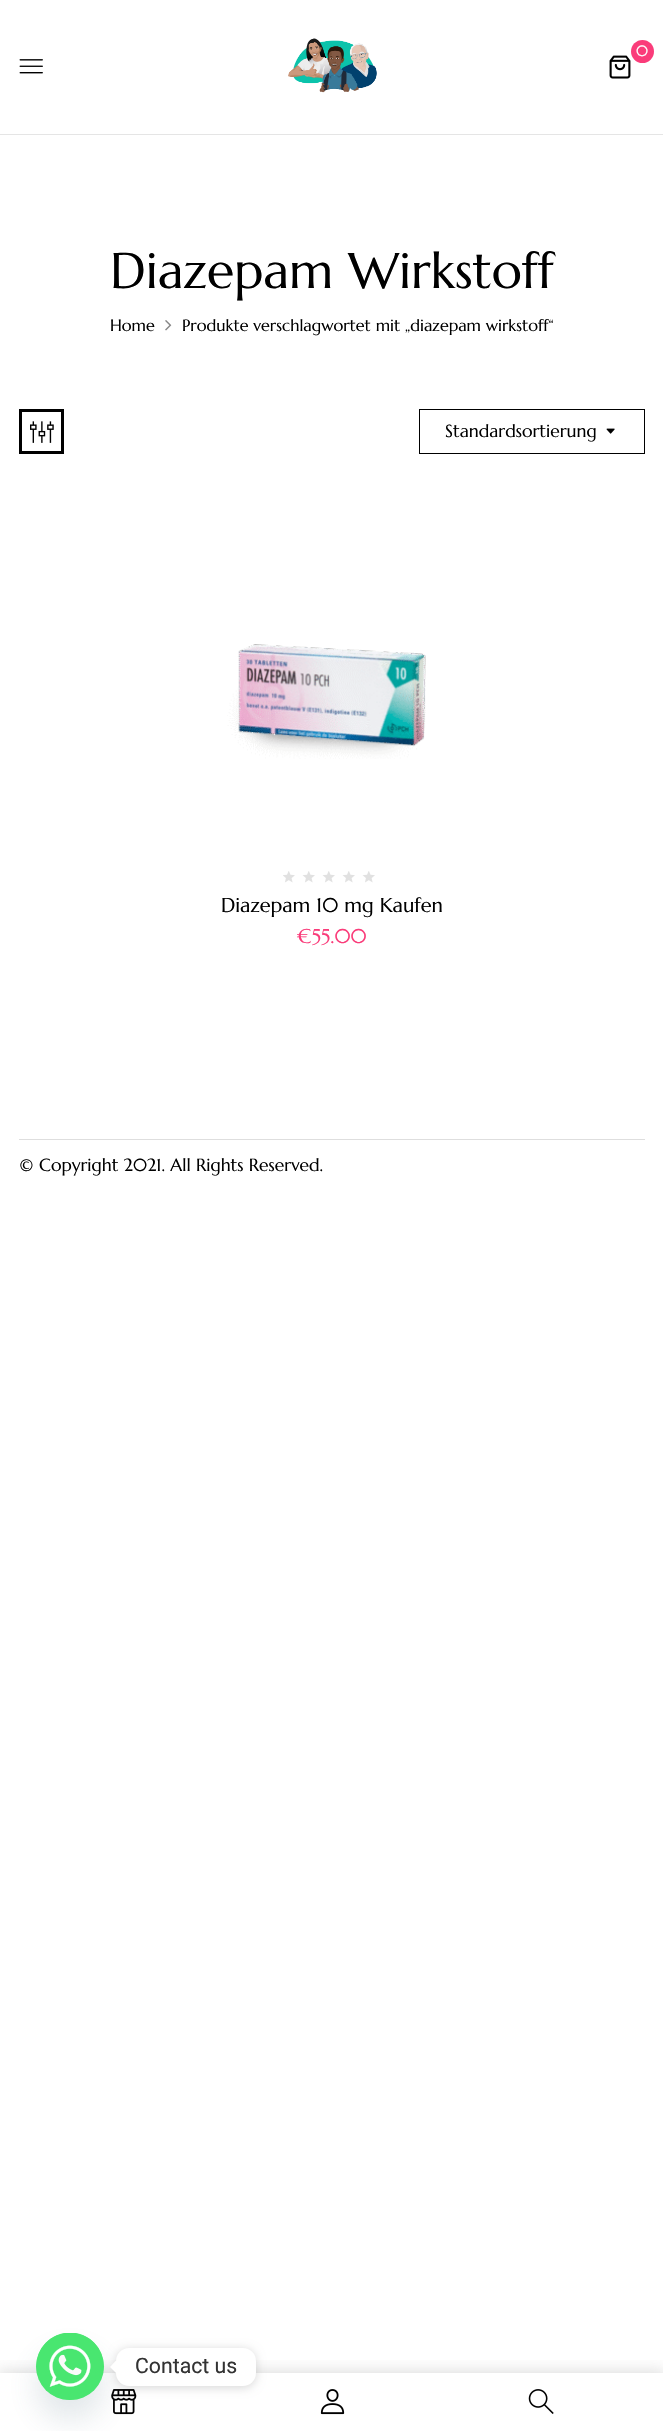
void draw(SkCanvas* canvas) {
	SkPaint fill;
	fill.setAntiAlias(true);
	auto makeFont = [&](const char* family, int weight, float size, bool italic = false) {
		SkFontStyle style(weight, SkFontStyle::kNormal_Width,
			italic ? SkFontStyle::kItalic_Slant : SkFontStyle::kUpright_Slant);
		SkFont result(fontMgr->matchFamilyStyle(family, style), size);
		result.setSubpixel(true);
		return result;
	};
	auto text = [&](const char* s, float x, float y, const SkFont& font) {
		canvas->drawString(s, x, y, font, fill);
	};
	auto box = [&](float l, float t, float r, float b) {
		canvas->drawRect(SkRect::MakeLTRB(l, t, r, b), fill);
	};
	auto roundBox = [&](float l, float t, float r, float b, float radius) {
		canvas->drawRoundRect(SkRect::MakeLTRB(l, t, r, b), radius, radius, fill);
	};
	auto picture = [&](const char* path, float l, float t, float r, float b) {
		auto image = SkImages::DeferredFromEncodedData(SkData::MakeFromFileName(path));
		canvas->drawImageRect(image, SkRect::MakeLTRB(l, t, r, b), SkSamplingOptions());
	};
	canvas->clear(0xFFFFFFFF);
	fill.setColor(0xFFE5E5E5);
	box(0, 134, 663, 135);
	picture("image0.png", 288, 38, 377, 93);
	fill.setColor(0xFFFA3C7A);
	canvas->drawCircle(642.5f, 51.5f, 11.5f, fill);
	picture("image1.png", 609, 55, 631, 79);
	picture("image2.png", 19, 59, 43, 74);
	canvas->save();
	canvas->clipRect(SkRect::MakeLTRB(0, 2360, 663, 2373));
	fill.setColor(0x4D8F8F8F);
	fill.setMaskFilter(SkMaskFilter::MakeBlur(kNormal_SkBlurStyle, 7.5f));
	canvas->drawRect(SkRect::MakeLTRB(-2, 2371, 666, 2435), fill);
	fill.setMaskFilter(nullptr);
	canvas->restore();
	picture("image3.png", 111, 2389, 137, 2415);
	picture("image4.png", 320, 2389, 345, 2415);
	picture("image5.png", 528, 2389, 554, 2414);
	picture("image6.png", 165, 320, 172, 331);
	fill.setStyle(SkPaint::kStroke_Style);
	fill.setStrokeWidth(3);
	fill.setColor(0xFF000000);
	canvas->drawRect(SkRect::MakeLTRB(20.5f, 410.5f, 62.5f, 452.5f), fill);
	picture("image7.png", 30, 421, 54, 443);
	fill.setStrokeWidth(1);
	canvas->drawRect(SkRect::MakeLTRB(419.5f, 409.5f, 644.5f, 453.5f), fill);
	picture("image8.png", 606, 428, 615, 434);
	picture("image9.png", 227, 644, 426, 759);
	picture("image10.png", 283, 871, 375, 883);
	fill.setStyle(SkPaint::kFill_Style);
	fill.setColor(0xFFDEDEDE);
	box(19, 1139, 645, 1140);
	fill.setColor(0x2949687E);
	fill.setMaskFilter(SkMaskFilter::MakeBlur(kNormal_SkBlurStyle, 15));
	canvas->drawRoundRect(SkRect::MakeLTRB(36, 2353, 104, 2420), 33.5f, 33.5f, fill);
	fill.setMaskFilter(nullptr);
	fill.setColor(0xFF49E670);
	roundBox(36, 2333, 104, 2400, 33.5f);
	picture("image11.png", 36, 2333, 104, 2400);
	fill.setColor(0x26000000);
	fill.setMaskFilter(SkMaskFilter::MakeBlur(kNormal_SkBlurStyle, 5));
	canvas->drawRoundRect(SkRect::MakeLTRB(116, 2349, 256, 2388), 13, 13, fill);
	fill.setMaskFilter(nullptr);
	fill.setColor(0xFFFFFFFF);
	roundBox(116, 2348, 256, 2386, 13);
	canvas->drawPath(SkPathBuilder().moveTo(116, 2360.5f).lineTo(116, 2373).lineTo(110, 2367).close().detach(), fill);
	auto font1 = makeFont("Marcellus", 400, 15);
	text("0", 636, 56, font1);
	auto font2 = makeFont("Marcellus", 400, 50);
	fill.setColor(0xFF000000);
	text("Diazepam Wirkstoff", 110, 288, font2);
	auto font3 = makeFont("Marcellus", 400, 16.25f);
	text("Home", 110, 331, font3);
	text("Produkte verschlagwortet mit „diazepam wirkstoff“", 182, 331, font3);
	auto font4 = makeFont("Marcellus", 400, 17.5f);
	text("Standardsortierung", 445, 437, font4);
	auto font5 = makeFont("Marcellus", 400, 20);
	text("Diazepam 10 mg Kaufen", 221, 912, font5);
	fill.setColor(0xFFFA3C7A);
	text("€55.00", 297, 943, font5);
	fill.setColor(0xFF000000);
	text("© Copyright 2021. All Rights Reserved.", 19, 1171, font4);
	auto font6 = makeFont("Roboto", 400, 21.25f);
	fill.setColor(0xFF333333);
	text("Contact us", 135, 2373, font6);
}
